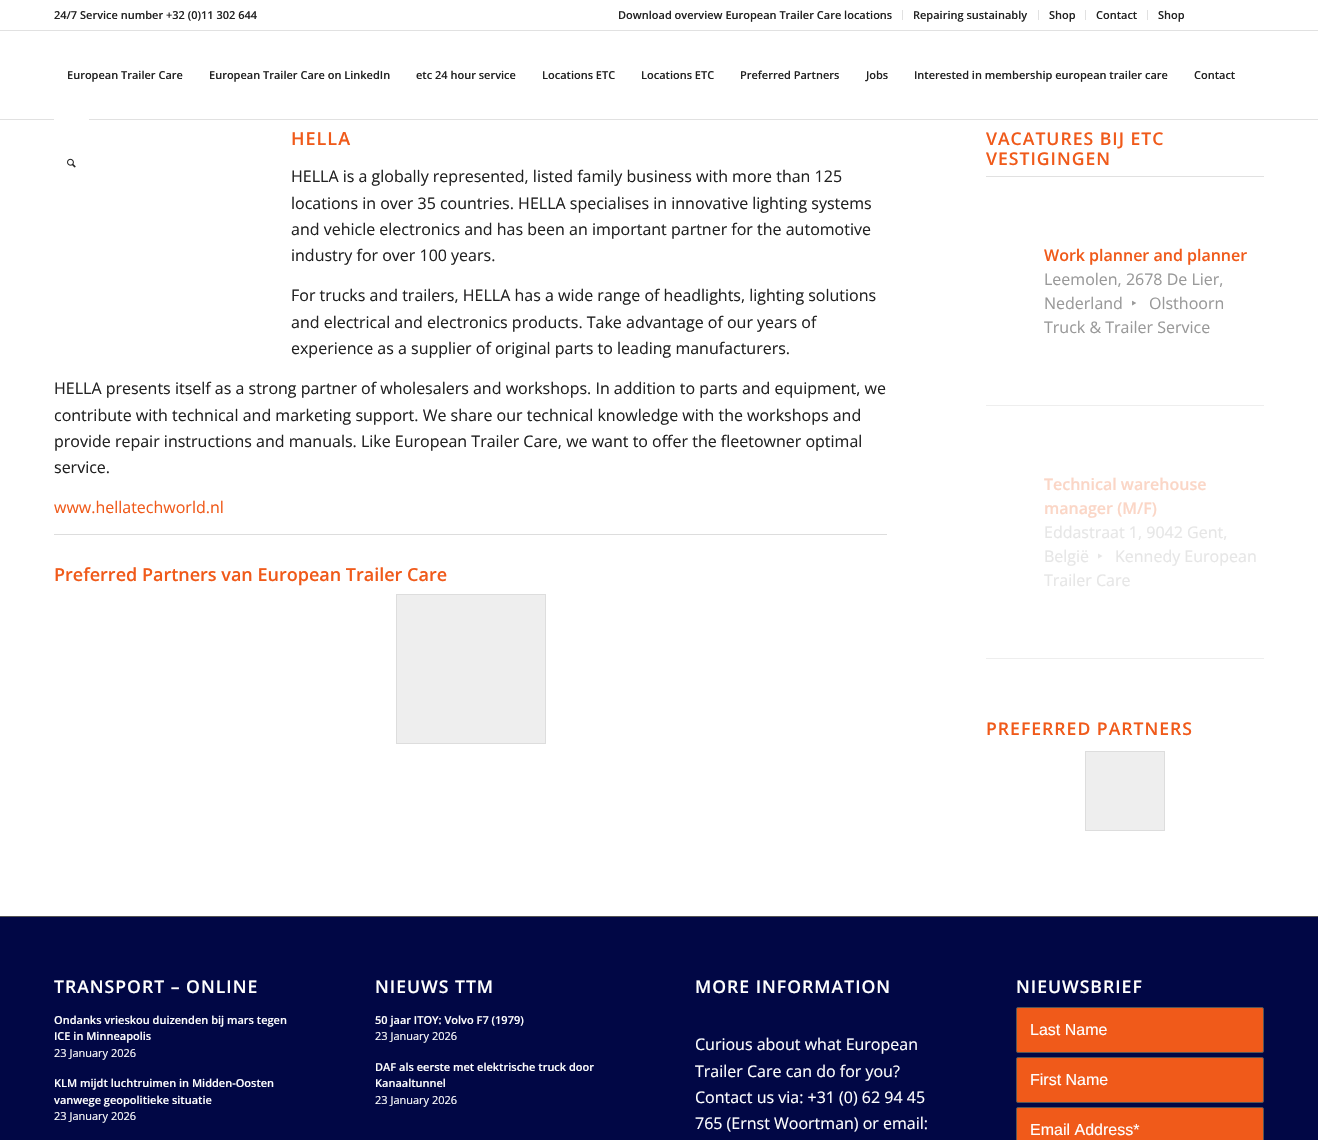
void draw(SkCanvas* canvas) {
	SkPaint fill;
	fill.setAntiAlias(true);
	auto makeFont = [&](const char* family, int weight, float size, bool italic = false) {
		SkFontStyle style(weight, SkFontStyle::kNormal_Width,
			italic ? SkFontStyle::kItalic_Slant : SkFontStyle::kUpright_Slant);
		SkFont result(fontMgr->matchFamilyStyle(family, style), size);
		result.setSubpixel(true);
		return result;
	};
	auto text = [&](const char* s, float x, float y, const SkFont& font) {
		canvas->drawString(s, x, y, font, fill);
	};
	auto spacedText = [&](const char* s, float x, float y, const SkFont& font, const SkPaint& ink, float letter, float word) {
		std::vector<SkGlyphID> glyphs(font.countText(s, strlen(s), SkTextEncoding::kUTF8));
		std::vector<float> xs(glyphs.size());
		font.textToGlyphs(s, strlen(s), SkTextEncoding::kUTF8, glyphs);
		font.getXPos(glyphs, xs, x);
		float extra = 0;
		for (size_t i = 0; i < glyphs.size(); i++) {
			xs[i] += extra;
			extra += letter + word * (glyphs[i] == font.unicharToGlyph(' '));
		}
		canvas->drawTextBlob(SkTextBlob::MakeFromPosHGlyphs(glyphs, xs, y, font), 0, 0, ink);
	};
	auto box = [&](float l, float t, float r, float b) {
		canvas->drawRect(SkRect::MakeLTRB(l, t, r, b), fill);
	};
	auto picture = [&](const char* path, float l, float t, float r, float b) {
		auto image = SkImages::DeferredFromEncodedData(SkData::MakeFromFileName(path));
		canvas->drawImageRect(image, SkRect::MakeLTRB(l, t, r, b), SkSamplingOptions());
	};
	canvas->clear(0xFFFFFFFF);
	fill.setColor(0xFFE1E1E1);
	box(902, 10, 903, 20);
	box(1038, 10, 1039, 20);
	box(1085, 10, 1086, 20);
	box(1147, 10, 1148, 20);
	box(0, 30, 1318, 31);
	box(0, 119, 1318, 120);
	fill.setColor(0xFFFFFFFF);
	box(54, 119, 89, 120);
	picture("image0.png", 67, 158, 76, 168);
	fill.setColor(0xFFDDDDDD);
	box(54, 534, 887, 535);
	fill.setColor(0xFFEEEEEE);
	canvas->drawRect(SkRect::MakeLTRB(396.5f, 594.5f, 545.5f, 743.5f), fill);
	fill.setStyle(SkPaint::kStroke_Style);
	fill.setStrokeWidth(1);
	fill.setColor(0xFFDDDDDD);
	canvas->drawRect(SkRect::MakeLTRB(396.5f, 594.5f, 545.5f, 743.5f), fill);
	fill.setStyle(SkPaint::kFill_Style);
	fill.setColor(0xFFE1E1E1);
	box(986, 176, 1264, 177);
	fill.setColor(0xFFEEEEEE);
	box(986, 405, 1264, 406);
	box(986, 658, 1264, 659);
	canvas->drawRect(SkRect::MakeLTRB(1085.5f, 751.5f, 1164.5f, 830.5f), fill);
	fill.setStyle(SkPaint::kStroke_Style);
	fill.setColor(0xFFDDDDDD);
	canvas->drawRect(SkRect::MakeLTRB(1085.5f, 751.5f, 1164.5f, 830.5f), fill);
	fill.setStyle(SkPaint::kFill_Style);
	fill.setColor(0xFF010745);
	box(0, 917, 1318, 1140);
	fill.setColor(0xFF555555);
	box(0, 916, 1318, 917);
	fill.setColor(0xFFF05A1A);
	canvas->drawRoundRect(SkRect::MakeLTRB(1016.5f, 1007.5f, 1263.5f, 1052.5f), 1.5f, 1.5f, fill);
	fill.setStyle(SkPaint::kStroke_Style);
	fill.setColor(0xFF555555);
	canvas->drawRoundRect(SkRect::MakeLTRB(1016.5f, 1007.5f, 1263.5f, 1052.5f), 1.5f, 1.5f, fill);
	fill.setStyle(SkPaint::kFill_Style);
	fill.setColor(0xFFF05A1A);
	canvas->drawRoundRect(SkRect::MakeLTRB(1016.5f, 1057.5f, 1263.5f, 1102.5f), 1.5f, 1.5f, fill);
	fill.setStyle(SkPaint::kStroke_Style);
	fill.setColor(0xFF555555);
	canvas->drawRoundRect(SkRect::MakeLTRB(1016.5f, 1057.5f, 1263.5f, 1102.5f), 1.5f, 1.5f, fill);
	fill.setStyle(SkPaint::kFill_Style);
	fill.setColor(0xFFF05A1A);
	canvas->drawRoundRect(SkRect::MakeLTRB(1016.5f, 1107.5f, 1263.5f, 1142.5f), 1.5f, 1.5f, fill);
	fill.setStyle(SkPaint::kStroke_Style);
	fill.setColor(0xFF555555);
	canvas->drawRoundRect(SkRect::MakeLTRB(1016.5f, 1107.5f, 1263.5f, 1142.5f), 1.5f, 1.5f, fill);
	auto font1 = makeFont("Open Sans", 600, 11);
	fill.setStyle(SkPaint::kFill_Style);
	fill.setColor(0xFF222222);
	text("24/7 Service number +32 (0)11 302 644", 54, 19, font1);
	text("Download overview European Trailer Care locations", 618, 19, font1);
	text("Repairing sustainably", 913, 19, font1);
	text("Shop", 1049, 19, font1);
	text("Contact", 1096, 19, font1);
	text("Shop", 1158, 19, font1);
	text("European Trailer Care", 67, 79, font1);
	text("European Trailer Care on LinkedIn", 209, 79, font1);
	text("etc 24 hour service", 416, 79, font1);
	text("Locations ETC", 542, 79, font1);
	text("Locations ETC", 641, 79, font1);
	text("Preferred Partners", 740, 79, font1);
	text("Jobs", 866, 79, font1);
	text("Interested in membership european trailer care", 914, 79, font1);
	text("Contact", 1194, 79, font1);
	auto font2 = makeFont("Open Sans", 600, 18);
	fill.setColor(0xFFF05A1A);
	spacedText("HELLA", 291, 145, font2, fill, 1, 0);
	auto font3 = makeFont("Open Sans", 400, 16);
	fill.setColor(0xFF222222);
	text("HELLA is a globally represented, listed family business with more than 125", 291, 182, font3);
	text("locations in over 35 countries. HELLA specialises in innovative lighting systems", 291, 209, font3);
	text("and vehicle electronics and has been an important partner for the automotive", 291, 235, font3);
	text("industry for over 100 years.", 291, 261, font3);
	text("For trucks and trailers, HELLA has a wide range of headlights, lighting solutions", 291, 301, font3);
	text("and electrical and electronics products. Take advantage of our years of", 291, 328, font3);
	text("experience as a supplier of original parts to leading manufacturers.", 291, 354, font3);
	text("HELLA presents itself as a strong partner of wholesalers and workshops. In addition to parts and equipment, we", 54, 394, font3);
	text("contribute with technical and marketing support. We share our technical knowledge with the workshops and", 54, 421, font3);
	text("provide repair instructions and manuals. Like European Trailer Care, we want to offer the fleetowner optimal", 54, 447, font3);
	text("service.", 54, 473, font3);
	fill.setColor(0xFFF05A1A);
	text("www.hellatechworld.nl", 54, 513, font3);
	text("Preferred Partners van European Trailer Care", 54, 581, font2);
	auto font4 = makeFont("Open Sans", 600, 17.6f);
	spacedText("VACATURES BIJ ETC", 986, 145, font4, fill, 1, 0);
	spacedText("VESTIGINGEN", 986, 165, font4, fill, 1, 0);
	auto font5 = makeFont("Open Sans", 600, 16);
	text("Work planner and planner", 1044, 261, font5);
	fill.setColor(0xFF999999);
	text("Leemolen, 2678 De Lier,", 1044, 285, font3);
	text("Nederland", 1044, 309, font3);
	auto font6 = makeFont("Noto Sans", 400, 16);
	text("‣", 1131, 309, font6);
	text("Olsthoorn", 1149, 309, font3);
	text("Truck & Trailer Service", 1044, 333, font3);
	fill.setColor(0xFFFBD6C6);
	text("Technical warehouse", 1044, 490, font5);
	text("manager (M/F)", 1044, 514, font5);
	fill.setColor(0xFFE6E6E6);
	text("Eddastraat 1, 9042 Gent,", 1044, 538, font3);
	text("België", 1044, 562, font3);
	text("‣", 1097, 562, font6);
	text("Kennedy European", 1115, 562, font3);
	text("Trailer Care", 1044, 586, font3);
	fill.setColor(0xFFF05A1A);
	spacedText("PREFERRED PARTNERS", 986, 735, font4, fill, 1, 0);
	fill.setColor(0xFFFFFFFF);
	spacedText("TRANSPORT – ONLINE", 54, 993, font4, fill, 1, 0);
	text("Ondanks vrieskou duizenden bij mars tegen", 54, 1024, font1);
	text("ICE in Minneapolis", 54, 1040, font1);
	auto font7 = makeFont("Open Sans", 400, 11);
	text("23 January 2026", 54, 1057, font7);
	text("KLM mijdt luchtruimen in Midden-Oosten", 54, 1087, font1);
	text("vanwege geopolitieke situatie", 54, 1104, font1);
	text("23 January 2026", 54, 1120, font7);
	spacedText("NIEUWS TTM", 375, 993, font4, fill, 1, 0);
	text("50 jaar ITOY: Volvo F7 (1979)", 375, 1024, font1);
	text("23 January 2026", 375, 1040, font7);
	text("DAF als eerste met elektrische truck door", 375, 1071, font1);
	text("Kanaaltunnel", 375, 1087, font1);
	text("23 January 2026", 375, 1104, font7);
	spacedText("MORE INFORMATION", 695, 993, font4, fill, 1, 0);
	text("Curious about what European", 695, 1050, font3);
	text("Trailer Care can do for you?", 695, 1077, font3);
	text("Contact us via: +31 (0) 62 94 45", 695, 1103, font3);
	text("765 (Ernst Woortman) or email:", 695, 1129, font3);
	spacedText("NIEUWSBRIEF", 1016, 993, font4, fill, 1, 0);
	auto font8 = makeFont("Liberation Sans", 400, 16);
	text("Last Name", 1030, 1035, font8);
	text("First Name", 1030, 1085, font8);
	text("Email Address*", 1030, 1135, font8);
}
